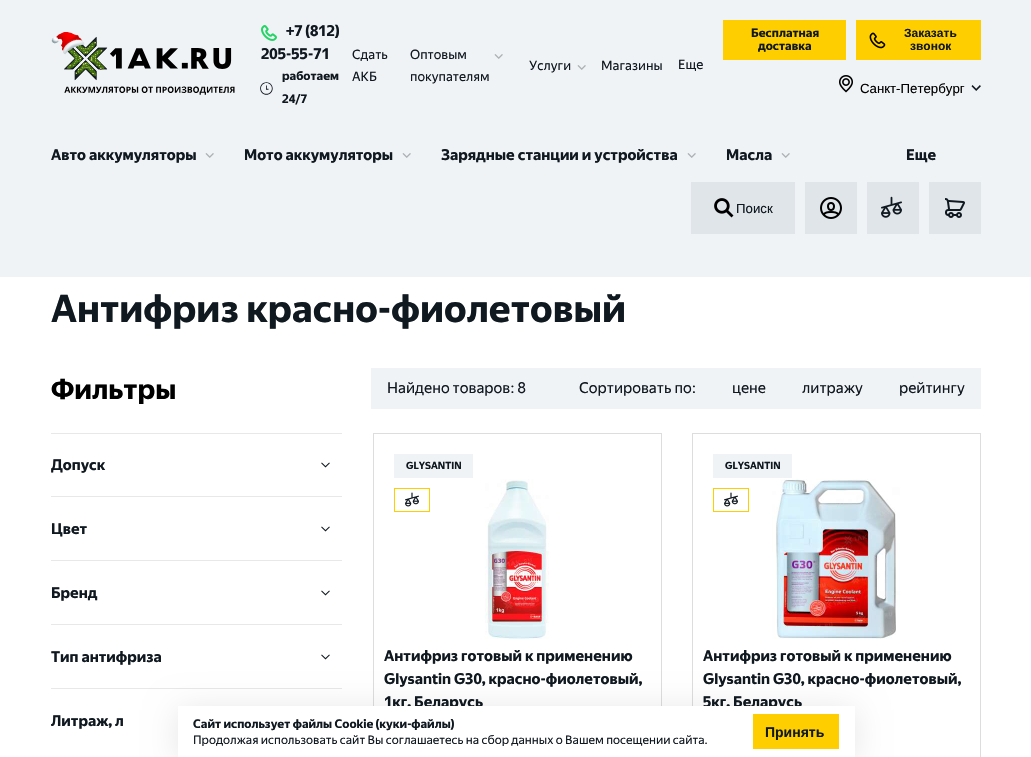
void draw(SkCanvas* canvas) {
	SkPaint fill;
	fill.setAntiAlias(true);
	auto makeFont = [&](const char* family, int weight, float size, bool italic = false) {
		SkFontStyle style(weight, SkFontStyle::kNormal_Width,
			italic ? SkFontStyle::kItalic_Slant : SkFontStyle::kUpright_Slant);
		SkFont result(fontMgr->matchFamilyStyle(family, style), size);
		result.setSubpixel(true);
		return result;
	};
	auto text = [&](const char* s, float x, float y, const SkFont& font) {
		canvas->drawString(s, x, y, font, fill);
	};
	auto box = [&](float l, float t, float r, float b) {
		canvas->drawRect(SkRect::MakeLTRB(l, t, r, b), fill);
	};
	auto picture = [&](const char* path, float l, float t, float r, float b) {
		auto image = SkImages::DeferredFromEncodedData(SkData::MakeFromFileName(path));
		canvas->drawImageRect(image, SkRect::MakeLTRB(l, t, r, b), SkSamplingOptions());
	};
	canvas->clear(0xFFFFFFFF);
	fill.setColor(0xFFF0F3F6);
	box(0, 0, 1031, 277);
	picture("image0.png", 51, 32, 235, 95);
	picture("image1.png", 261, 25, 277, 41);
	picture("image2.png", 260, 82, 273, 95);
	picture("image3.png", 494, 54, 503, 59);
	picture("image3.png", 577, 65, 586, 70);
	fill.setColor(0xFFFFCE00);
	box(723, 20, 846, 60);
	box(856, 20, 981, 60);
	picture("image4.png", 869, 32, 886, 49);
	picture("image5.png", 839, 75, 853, 93);
	picture("image6.png", 971, 85, 981, 91);
	picture("image3.png", 205, 153, 214, 158);
	picture("image3.png", 402, 153, 411, 158);
	picture("image3.png", 687, 153, 696, 158);
	picture("image3.png", 781, 153, 790, 158);
	fill.setColor(0xFFDFE5E9);
	box(691, 182, 795, 234);
	picture("image7.png", 714, 198, 734, 218);
	box(805, 182, 857, 234);
	picture("image8.png", 820, 197, 842, 219);
	box(867, 182, 919, 234);
	picture("image9.png", 881, 196, 902, 218);
	box(929, 182, 981, 234);
	picture("image10.png", 945, 198, 965, 218);
	fill.setColor(0xFFF0F3F6);
	box(371, 368, 981, 409);
	fill.setColor(0xFFE8E8E8);
	box(51, 433, 342, 434);
	box(51, 496, 342, 497);
	picture("image11.png", 321, 462, 330, 468);
	box(51, 560, 342, 561);
	picture("image11.png", 321, 526, 330, 532);
	box(51, 624, 342, 625);
	picture("image11.png", 321, 590, 330, 596);
	box(51, 688, 342, 689);
	picture("image11.png", 321, 654, 330, 660);
	fill.setStyle(SkPaint::kStroke_Style);
	fill.setStrokeWidth(1);
	fill.setColor(0xFFDDDDDD);
	canvas->drawRect(SkRect::MakeLTRB(373.5f, 433.5f, 661.5f, 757.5f), fill);
	fill.setStyle(SkPaint::kFill_Style);
	fill.setColor(0xFFF0F3F6);
	box(394, 454, 473, 478);
	fill.setStyle(SkPaint::kStroke_Style);
	fill.setColor(0xFFFFCE00);
	canvas->drawRect(SkRect::MakeLTRB(394.5f, 488.5f, 429.5f, 511.5f), fill);
	picture("image12.png", 405, 492, 419, 507);
	picture("image13.png", 485, 479, 549, 639);
	fill.setColor(0xFFDDDDDD);
	canvas->drawRect(SkRect::MakeLTRB(692.5f, 433.5f, 980.5f, 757.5f), fill);
	fill.setStyle(SkPaint::kFill_Style);
	fill.setColor(0xFFF0F3F6);
	box(713, 454, 792, 478);
	fill.setStyle(SkPaint::kStroke_Style);
	fill.setColor(0xFFFFCE00);
	canvas->drawRect(SkRect::MakeLTRB(713.5f, 488.5f, 748.5f, 511.5f), fill);
	picture("image12.png", 724, 492, 738, 507);
	picture("image14.png", 772, 479, 900, 639);
	fill.setStyle(SkPaint::kFill_Style);
	fill.setColor(0x1A000000);
	fill.setMaskFilter(SkMaskFilter::MakeBlur(kNormal_SkBlurStyle, 16));
	canvas->drawRect(SkRect::MakeLTRB(178, 710, 855, 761), fill);
	fill.setMaskFilter(nullptr);
	auto font1 = makeFont("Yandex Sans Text", 700, 15);
	fill.setColor(0xFF101820);
	text("+7 (812)", 286, 36, font1);
	text("205-55-71", 261, 59, font1);
	auto font2 = makeFont("Yandex Sans Text", 700, 12);
	text("работаем", 282, 80, font2);
	text("24/7", 282, 103, font2);
	auto font3 = makeFont("Yandex Sans Text", 400, 13);
	text("Сдать", 352, 59, font3);
	text("АКБ", 352, 81, font3);
	text("Оптовым", 410, 59, font3);
	text("покупателям", 410, 81, font3);
	text("Услуги", 529, 70, font3);
	text("Магазины", 601, 70, font3);
	text("Еще", 678, 69, font3);
	text("Бесплатная", 751, 37, font2);
	text("доставка", 758, 50, font2);
	auto font4 = makeFont("Liberation Sans", 700, 12);
	text("Заказать", 904, 37, font4);
	text("звонок", 910, 50, font4);
	auto font5 = makeFont("Liberation Sans", 400, 13.25f);
	fill.setColor(0xFF000000);
	text("Санкт-Петербург", 860, 93, font5);
	fill.setColor(0xFF101820);
	text("Авто аккумуляторы", 51, 160, font1);
	text("Мото аккумуляторы", 244, 160, font1);
	text("Зарядные станции и устройства", 441, 160, font1);
	text("Масла", 726, 160, font1);
	text("Еще", 906, 160, font1);
	text("Поиск", 736, 213, font5);
	auto font6 = makeFont("Yandex Sans Text", 700, 38);
	text("Антифриз красно-фиолетовый", 51, 322, font6);
	auto font7 = makeFont("Yandex Sans Text", 700, 28);
	fill.setColor(0xFF000000);
	text("Фильтры", 51, 399, font7);
	auto font8 = makeFont("Yandex Sans Text", 400, 15);
	fill.setColor(0xFF101820);
	text("Найдено товаров: 8", 387, 393, font8);
	text("Сортировать по:", 579, 393, font8);
	text("цене", 732, 393, font8);
	text("литражу", 802, 393, font8);
	text("рейтингу", 899, 393, font8);
	canvas->save();
	canvas->clipRect(SkRect::MakeLTRB(51, 434, 342, 498));
	text("Допуск", 51, 470, font1);
	canvas->restore();
	text("Цвет", 51, 534, font1);
	text("Бренд", 51, 598, font1);
	text("Тип антифриза", 51, 662, font1);
	text("Литраж, л", 51, 726, font1);
	auto font9 = makeFont("Yandex Sans Text", 700, 10);
	text("GLYSANTIN", 406, 469, font9);
	text("Антифриз готовый к применению", 384, 661, font1);
	text("Glysantin G30, красно-фиолетовый,", 384, 684, font1);
	text("1кг, Беларусь", 384, 707, font1);
	text("GLYSANTIN", 725, 469, font9);
	text("Антифриз готовый к применению", 703, 661, font1);
	text("Glysantin G30, красно-фиолетовый,", 703, 684, font1);
	text("5кг, Беларусь", 703, 707, font1);
	fill.setColor(0xFFFFFFFF);
	box(178, 706, 855, 757);
	fill.setColor(0xFF101820);
	text("Сайт использует файлы Cookie (куки-файлы)", 193, 728, font2);
	auto font10 = makeFont("Yandex Sans Text", 400, 12);
	text("Продолжая использовать сайт Вы соглашаетесь на сбор данных о Вашем посещении сайта.", 193, 744, font10);
	fill.setColor(0xFFFFCE00);
	box(753, 714, 839, 749);
	auto font11 = makeFont("Liberation Sans", 700, 14);
	fill.setColor(0xFF101820);
	text("Принять", 765, 737, font11);
}
